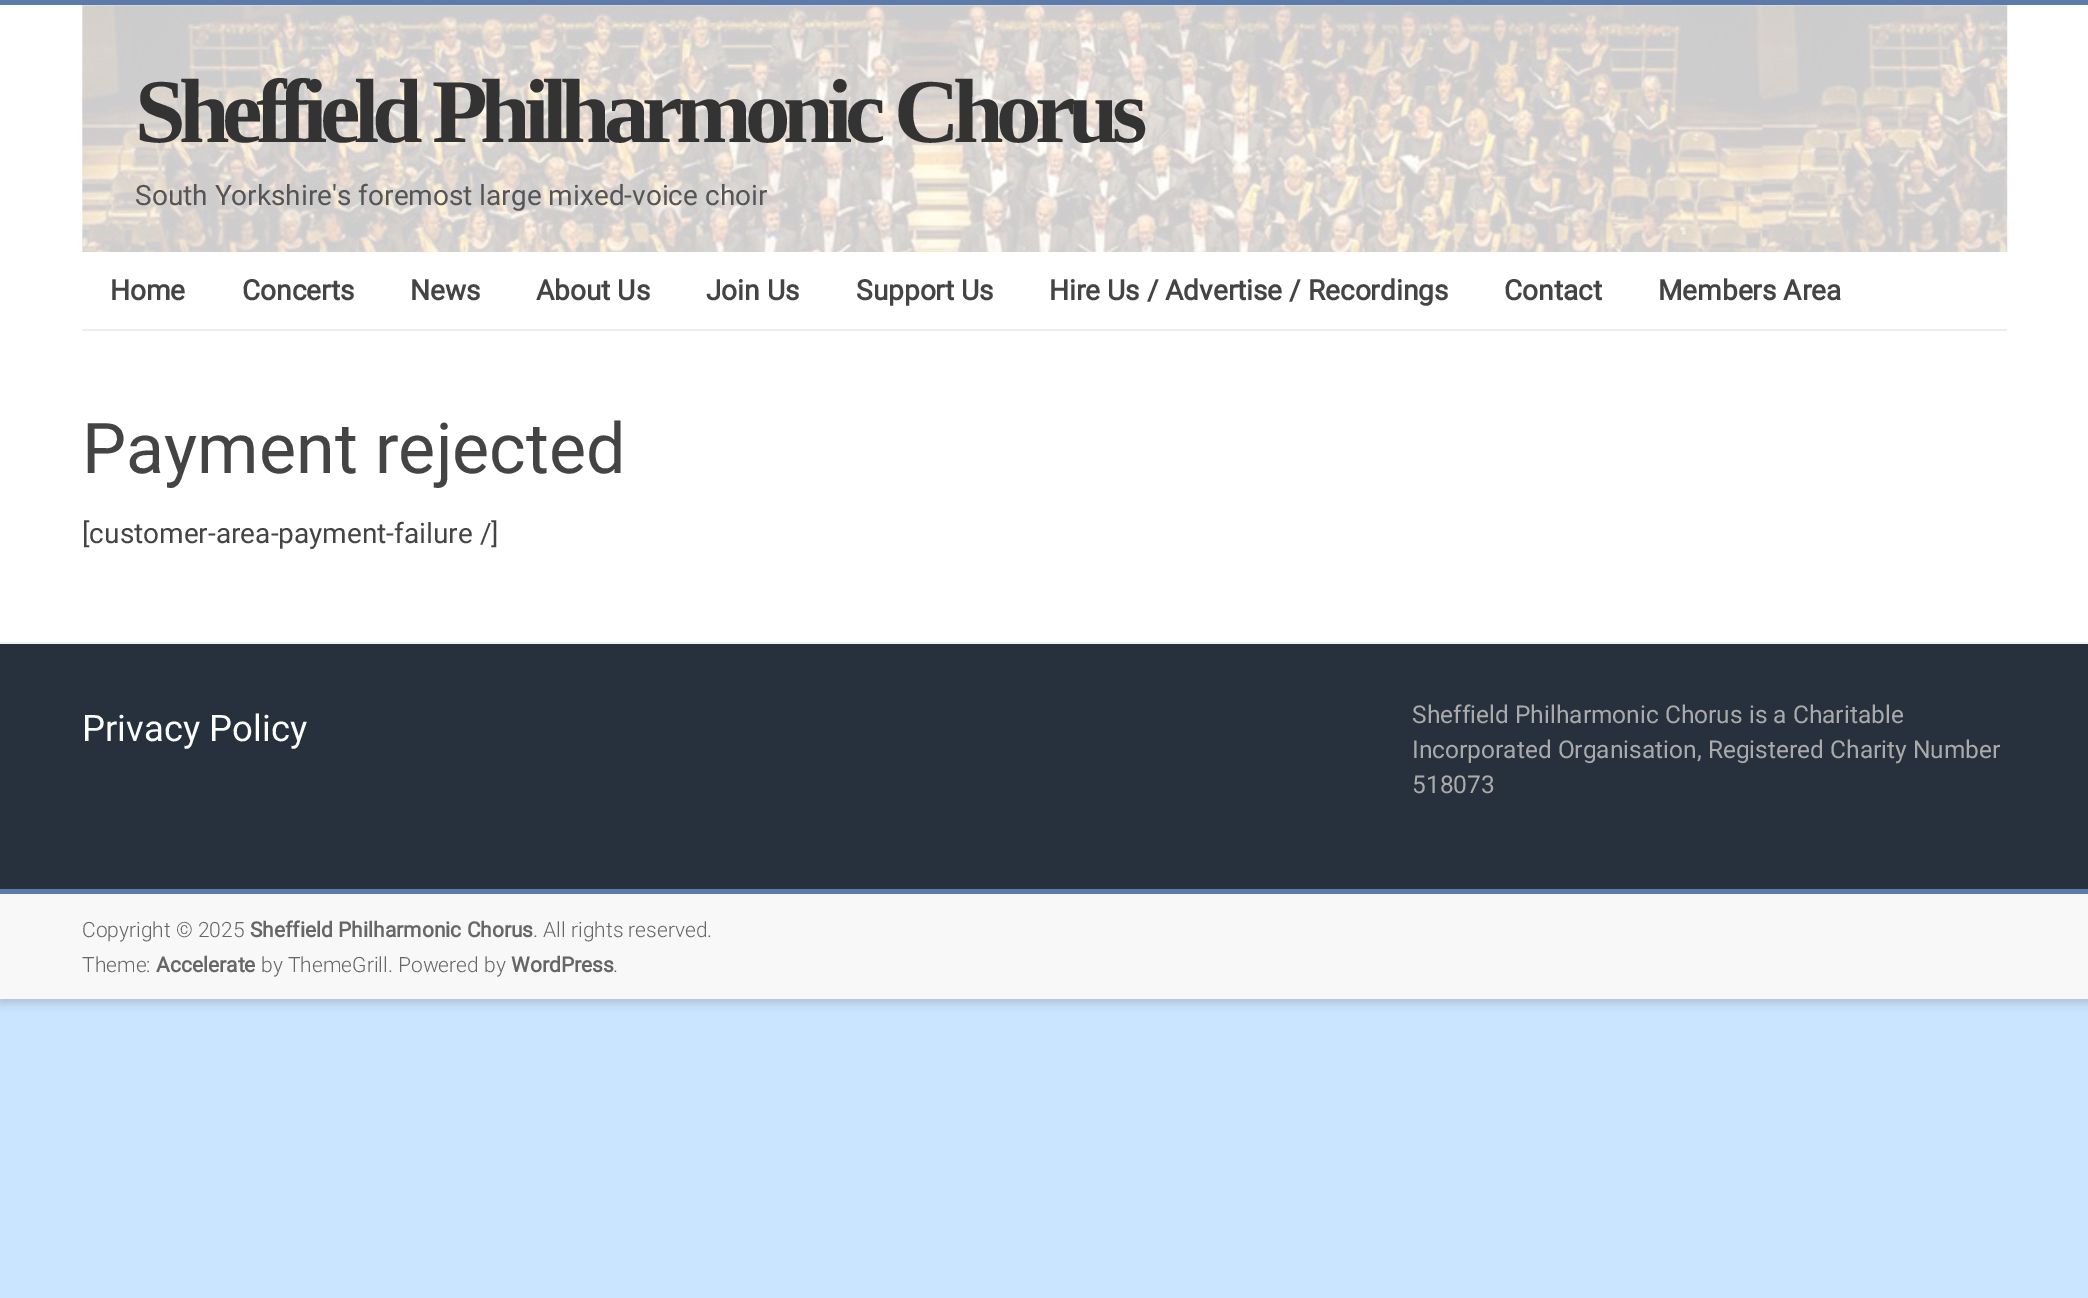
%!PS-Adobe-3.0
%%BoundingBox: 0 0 2088 1298
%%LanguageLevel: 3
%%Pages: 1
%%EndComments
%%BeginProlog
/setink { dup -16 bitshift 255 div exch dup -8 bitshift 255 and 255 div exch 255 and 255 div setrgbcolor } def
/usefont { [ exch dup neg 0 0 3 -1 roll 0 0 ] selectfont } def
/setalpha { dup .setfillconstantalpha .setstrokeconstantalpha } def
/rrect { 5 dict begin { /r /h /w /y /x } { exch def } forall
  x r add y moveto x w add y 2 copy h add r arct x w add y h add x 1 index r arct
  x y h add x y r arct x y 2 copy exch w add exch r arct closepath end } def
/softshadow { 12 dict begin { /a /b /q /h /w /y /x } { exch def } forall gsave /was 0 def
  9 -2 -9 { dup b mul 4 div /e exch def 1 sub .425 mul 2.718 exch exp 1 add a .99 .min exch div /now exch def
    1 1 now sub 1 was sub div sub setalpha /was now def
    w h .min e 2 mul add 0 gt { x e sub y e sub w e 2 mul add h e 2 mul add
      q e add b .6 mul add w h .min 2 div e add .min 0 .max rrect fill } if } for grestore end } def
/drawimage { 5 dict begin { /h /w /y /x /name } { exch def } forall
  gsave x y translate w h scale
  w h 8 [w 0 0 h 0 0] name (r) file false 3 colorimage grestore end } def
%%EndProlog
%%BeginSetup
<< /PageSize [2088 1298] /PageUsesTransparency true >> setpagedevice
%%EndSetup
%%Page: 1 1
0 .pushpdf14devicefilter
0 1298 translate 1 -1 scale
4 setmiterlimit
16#CAE5FF setink
0 0 2088 1298 rectfill
16#646464 setink
0 4 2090 999 0 5 0.3 softshadow
16#FFFFFF setink
0 5 2088 637 rectfill
16#5C7BAA setink
0 0 2088 5 rectfill
(img1.raw) 82 5 1926 247 drawimage
/LiberationSerif-Bold 91 usefont
16#333333 setink
135 142 moveto -7 0 (Sheffield Philharmonic Chorus) ashow
/Roboto-Regular 28 usefont
16#555555 setink
135 205 moveto (South Yorkshire's foremost large mixed-voice choir) show
16#EEEEEE setink
82 329 1925 2 rectfill
/Roboto-Bold 28 usefont
16#444444 setink
[
    [(Home) 110 300]
    [(Concerts) 242 300]
    [(News) 410 300]
    [(About Us) 536 300]
    [(Join Us) 706 300]
    [(Support Us) 856 300]
    [(Hire Us / Advertise / Recordings) 1049 300]
    [(Contact) 1504 300]
    [(Members Area) 1658 300]
] { aload pop moveto show } forall
/Roboto-Regular 70 usefont
82 473 moveto (Payment rejected) show
/Roboto-Regular 28 usefont
82 543 moveto ([customer-area-payment-failure /]) show
16#27313D setink
0 644 2088 245 rectfill
16#F2F2F2 setink
0 642 2088 2 rectfill
/Roboto-Regular 36.5 usefont
16#FFFFFF setink
82 741 moveto (Privacy Policy) show
/Roboto-Regular 24.5 usefont
16#AAAAAA setink
[
    [(Sheffield Philharmonic Chorus is a Charitable) 1412 723]
    [(Incorporated Organisation, Registered Charity Number) 1412 758]
    [(518073) 1412 793]
] { aload pop moveto show } forall
16#F8F8F8 setink
0 894 2088 105 rectfill
16#5C7BAA setink
0 889 2088 5 rectfill
/Roboto-Light 21 usefont
16#666666 setink
82 937 moveto (Copyright © 2025) show
/Roboto-Bold 21 usefont
250 937 moveto (Sheffield Philharmonic Chorus) show
/Roboto-Light 21 usefont
533 937 moveto (. All rights reserved.) show
82 972 moveto (Theme:) show
/Roboto-Bold 21 usefont
156 972 moveto (Accelerate) show
/Roboto-Light 21 usefont
261 972 moveto (by ThemeGrill. Powered by) show
/Roboto-Bold 21 usefont
511 972 moveto (WordPress) show
/Roboto-Light 21 usefont
613 972 moveto (.) show
.poppdf14devicefilter showpage
%%EOF
